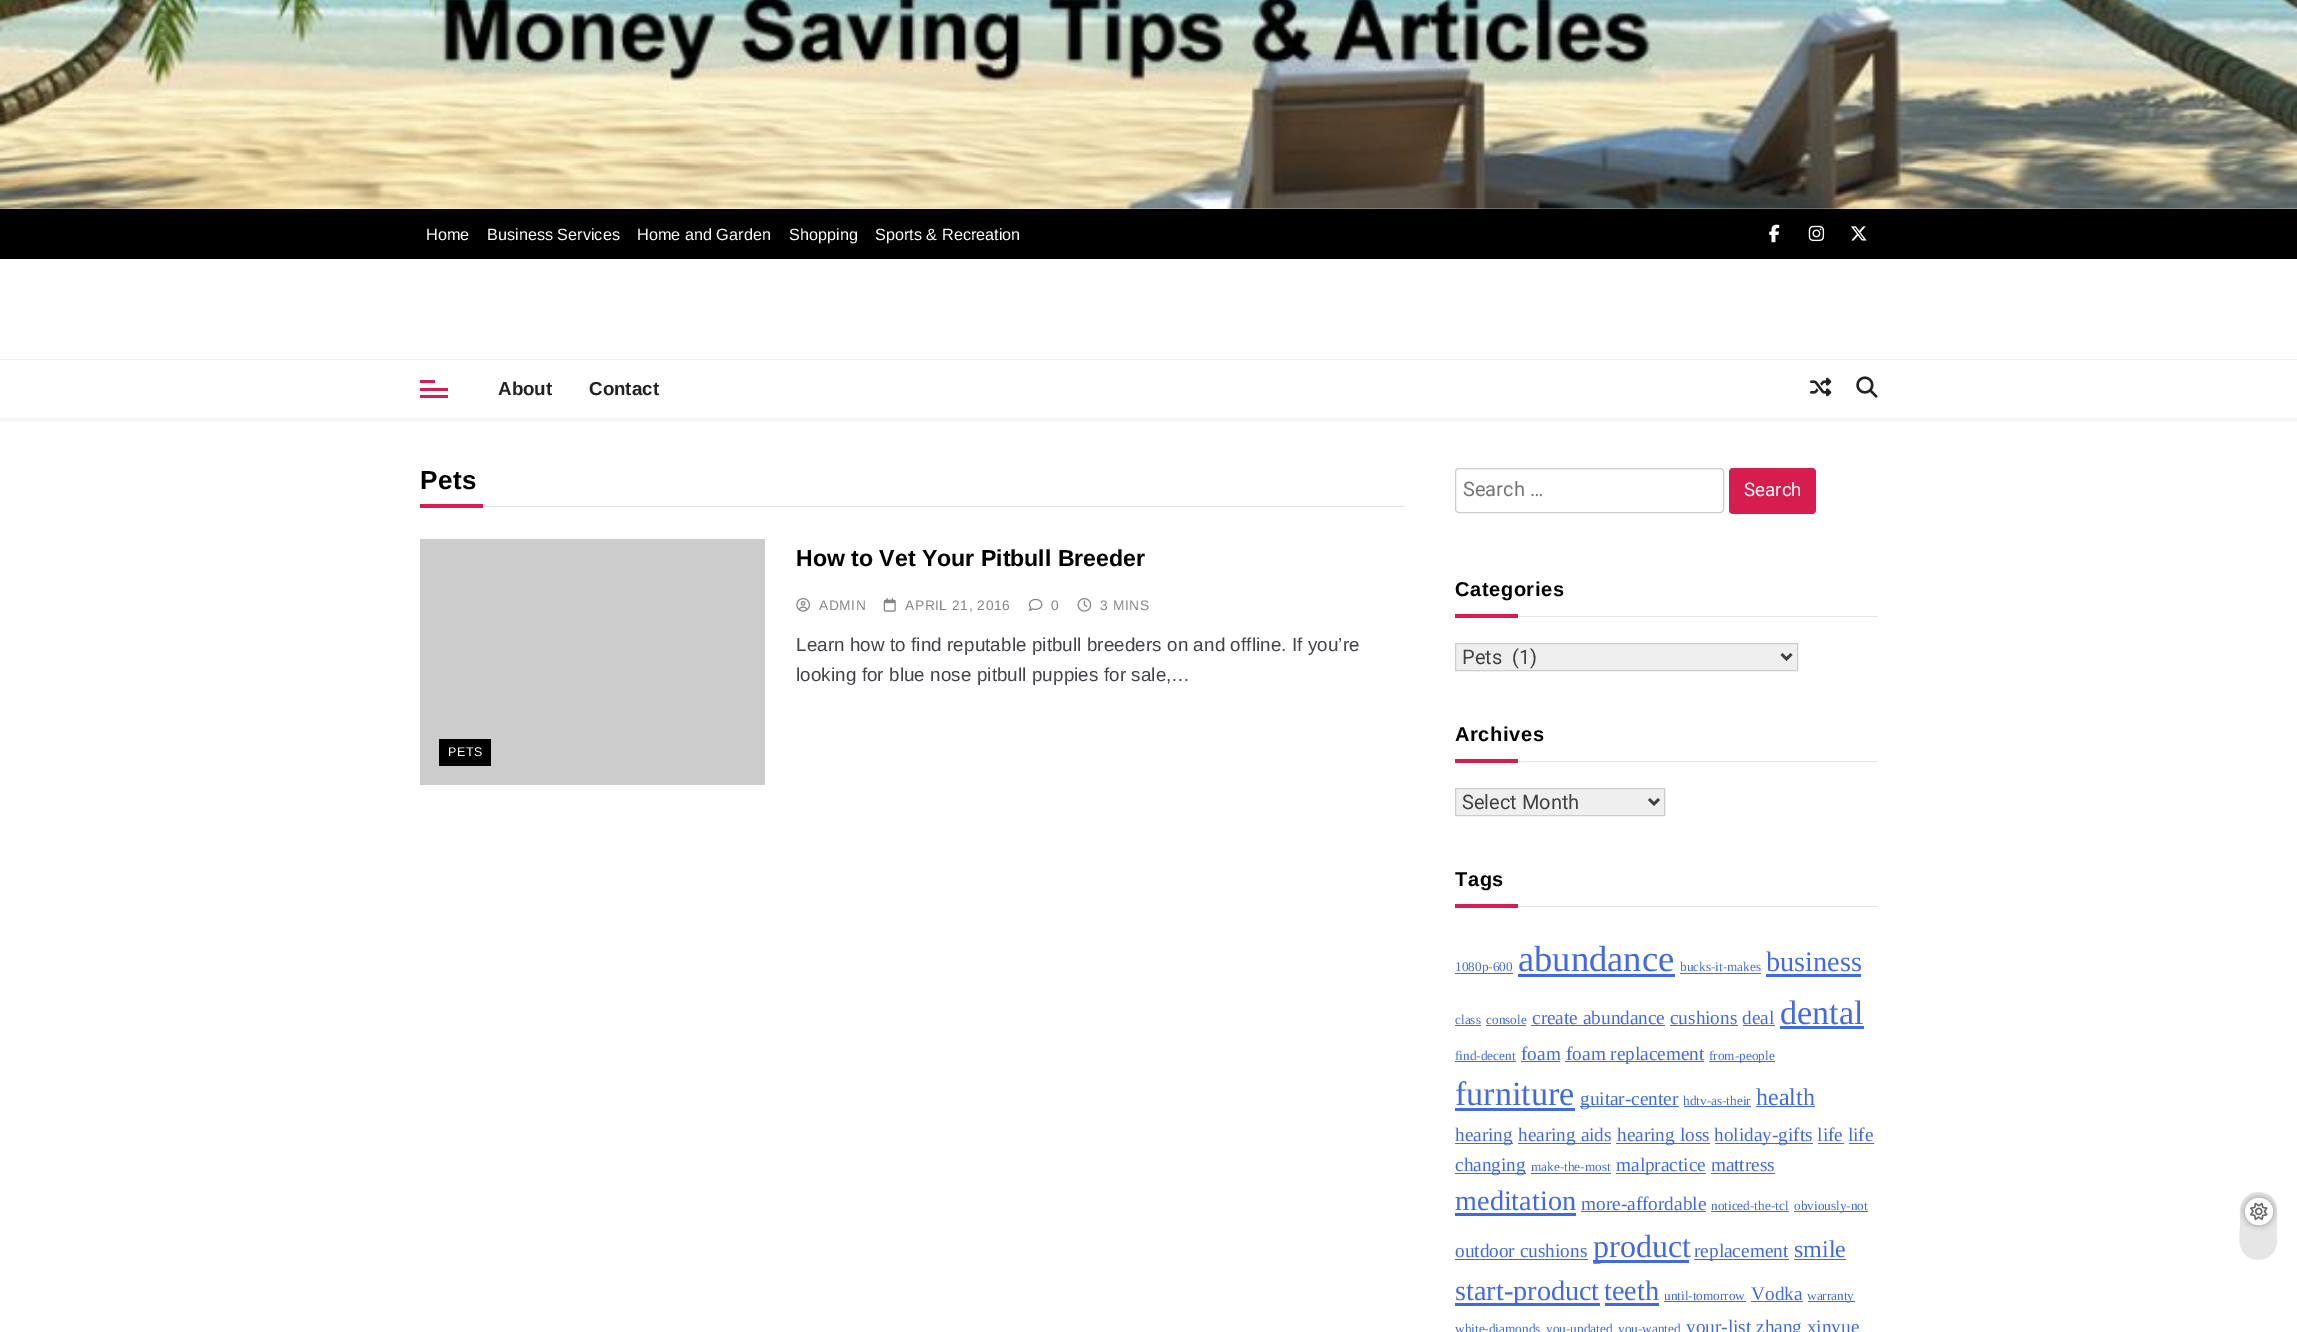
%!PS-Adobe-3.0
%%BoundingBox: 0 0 2297 1332
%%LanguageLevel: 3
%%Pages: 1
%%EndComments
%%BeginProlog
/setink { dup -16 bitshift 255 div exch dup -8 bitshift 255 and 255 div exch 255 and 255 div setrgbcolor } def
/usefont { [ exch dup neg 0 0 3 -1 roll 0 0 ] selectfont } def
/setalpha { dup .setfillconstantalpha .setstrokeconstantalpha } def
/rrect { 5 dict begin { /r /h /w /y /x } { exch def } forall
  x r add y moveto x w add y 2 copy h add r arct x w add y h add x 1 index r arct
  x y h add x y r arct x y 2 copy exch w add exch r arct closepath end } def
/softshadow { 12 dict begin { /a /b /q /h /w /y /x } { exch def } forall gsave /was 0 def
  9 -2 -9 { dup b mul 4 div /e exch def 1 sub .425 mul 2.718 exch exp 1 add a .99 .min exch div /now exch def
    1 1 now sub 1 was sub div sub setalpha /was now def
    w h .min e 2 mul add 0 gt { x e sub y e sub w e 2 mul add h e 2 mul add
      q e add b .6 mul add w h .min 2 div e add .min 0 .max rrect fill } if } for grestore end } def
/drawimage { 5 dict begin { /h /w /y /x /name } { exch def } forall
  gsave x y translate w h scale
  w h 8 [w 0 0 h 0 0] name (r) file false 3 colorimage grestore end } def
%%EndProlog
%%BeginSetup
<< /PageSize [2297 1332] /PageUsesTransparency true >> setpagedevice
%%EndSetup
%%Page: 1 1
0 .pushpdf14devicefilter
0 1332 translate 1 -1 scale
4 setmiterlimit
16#FFFFFF setink
0 0 2297 1332 rectfill
(img1.raw) 0 0 2297 209 drawimage
16#000000 setink
0 209 2297 50 rectfill
/LiberationSans-Regular 16.25 usefont
16#FFFFFF setink
[
    [(Home) 426 240]
    [(Business Services) 487 240]
    [(Home and Garden) 637 240]
    [(Shopping) 789 240]
    [(Sports & Recreation) 875 240]
] { aload pop moveto show } forall
(img2.raw) 1769 224 11 19 drawimage
(img3.raw) 1808 225 17 17 drawimage
(img4.raw) 1851 226 16 15 drawimage
gsave
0 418 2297 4 rectclip
16#000000 setink
0 263 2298 158 0 2.5 0.05 softshadow
grestore
[
    [0 417 2297 1 16#FFFFFF]
    [0 359 2297 1 16#EFEFEF]
    [420 380 15 3 16#D71D4F]
    [420 388 28 3 16#D71D4F]
    [420 395 28 3 16#D71D4F]
] { aload pop setink rectfill } forall
/LiberationSans-Bold 18.75 usefont
16#222222 setink
498 395 moveto (About) show
589 395 moveto (Contact) show
(img5.raw) 1810 377 22 20 drawimage
(img6.raw) 1856 376 22 22 drawimage
16#E5E5E5 setink
483 506 922 1 rectfill
/LiberationSans-Bold 26 usefont
16#000000 setink
420 489 moveto 0.6 0 (Pets) ashow
16#D71D4F setink
420 504 63 4 rectfill
/LiberationSans-Bold 23.1 usefont
16#000000 setink
796 566 moveto (How to Vet Your Pitbull Breeder) show
(img7.raw) 796 598 14 14 drawimage
/LiberationSans-Regular 13.75 usefont
16#858585 setink
819 610 moveto 0.6 0 (ADMIN) ashow
(img8.raw) 883 598 13 14 drawimage
905 610 moveto 0.6 0 (APRIL 21, 2016) ashow
(img9.raw) 1028 598 15 13 drawimage
1051 610 moveto 0.6 0 (0) ashow
(img10.raw) 1077 598 15 14 drawimage
1100 610 moveto 0.6 0 (3 MINS) ashow
/LiberationSans-Regular 18.75 usefont
16#424449 setink
796 651 moveto 0.12 0 (Learn how to find reputable pitbull breeders on and offline. If you’re) ashow
796 681 moveto 0.12 0 (looking for blue nose pitbull puppies for sale,…) ashow
16#CCCCCC setink
420 539 345 246 rectfill
16#000000 setink
439 739 52 27 rectfill
/LiberationSans-Regular 12.5 usefont
16#FFFFFF setink
448 756 moveto 0.6 0 (PETS) ashow
16#CCCCCC setink
1455.5 468.5 268 44 3.5 rrect stroke
/Roboto-Regular 20 usefont
16#757575 setink
1463 496 moveto (Search …) show
16#D71D4F setink
1729 468 87 46 4 rrect fill
/Roboto-Regular 18.75 usefont
16#FFFFFF setink
1744 496 moveto (Search) show
16#E5E5E5 setink
1518 616 360 1 rectfill
/LiberationSans-Bold 20 usefont
16#000000 setink
1455 596 moveto 0.6 0 (Categories) ashow
16#D71D4F setink
1455 614 63 4 rectfill
16#EFEFEF setink
1455.5 643.5 moveto 1797.5 643.5 lineto 1797.5 670.5 lineto 1455.5 670.5 lineto closepath gsave fill grestore
16#CCCCCC setink
stroke
16#404040 setink
2.5 setlinewidth
1781.5 654 moveto 1786.5 659 lineto 1791.5 654 lineto stroke
/Roboto-Regular 20 usefont
1462 664 moveto (Pets  \(1\)) show
16#E5E5E5 setink
1518 761 360 1 rectfill
/LiberationSans-Bold 20 usefont
16#000000 setink
1455 741 moveto 0.6 0 (Archives) ashow
16#D71D4F setink
1455 759 63 4 rectfill
16#EFEFEF setink
1455.5 788.5 moveto 1664.5 788.5 lineto 1664.5 815.5 lineto 1455.5 815.5 lineto closepath gsave fill grestore
16#CCCCCC setink
1 setlinewidth
stroke
16#404040 setink
2.5 setlinewidth
1649 799 moveto 1654 804 lineto 1659 799 lineto stroke
/Roboto-Regular 20 usefont
1462 809 moveto (Select Month) show
16#E5E5E5 setink
1518 906 360 1 rectfill
/LiberationSans-Bold 20 usefont
16#000000 setink
1455 886 moveto 0.6 0 (Tags) ashow
16#D71D4F setink
1455 904 63 4 rectfill
16#4169E1 setink
1455 973 58 1 rectfill
/LiberationSerif-Regular 13.25 usefont
1455 971 moveto (1080p-600) show
/LiberationSerif-Regular 36.5 usefont
1518 971 moveto (abundance) show
1518 974 157 3 rectfill
/LiberationSerif-Regular 13.25 usefont
1680 971 moveto (bucks-it-makes) show
1680 973 81 1 rectfill
/LiberationSerif-Regular 28.25 usefont
1766 971 moveto (business) show
1766 974 95 3 rectfill
/LiberationSerif-Regular 13.25 usefont
1455 1024 moveto (class) show
1455 1025 26 1 rectfill
1486 1024 moveto (console) show
1486 1025 40 1 rectfill
/LiberationSerif-Regular 19.25 usefont
1532 1024 moveto (create abundance cushions deal) show
1531 1025 134 1 rectfill
/LiberationSerif-Regular 34 usefont
1780 1024 moveto (dental) show
[
    [1780 1026 84 3 16#4169E1]
    [1670 1025 68 1 16#4169E1]
    [1743 1025 32 1 16#4169E1]
] { aload pop setink rectfill } forall
/LiberationSerif-Regular 13.25 usefont
1455 1060 moveto (find-decent) show
1455 1061 61 1 rectfill
/LiberationSerif-Regular 19.25 usefont
1521 1060 moveto (foam) show
1521 1061 39 1 rectfill
1565 1061 139 1 rectfill
1566 1060 moveto (foam replacement) show
1709 1061 66 1 rectfill
/LiberationSerif-Regular 13.25 usefont
1709 1060 moveto (from-people) show
/LiberationSerif-Regular 34 usefont
1455 1105 moveto (furniture) show
1455 1108 120 3 rectfill
1580 1106 99 1 rectfill
/LiberationSerif-Regular 19.25 usefont
1580 1105 moveto (guitar-center) show
/LiberationSerif-Regular 13.25 usefont
1683 1105 moveto (hdtv-as-their) show
1684 1106 67 1 rectfill
/LiberationSerif-Regular 24 usefont
1756 1105 moveto (health) show
1756 1106 59 1 rectfill
1455 1143 58 1 rectfill
/LiberationSerif-Regular 19.25 usefont
1455 1141 moveto (hearing) show
1518 1143 93 1 rectfill
1518 1141 moveto (hearing aids) show
1616 1143 94 1 rectfill
1617 1141 moveto (hearing loss) show
1715 1143 98 1 rectfill
1714 1141 moveto (holiday-gifts life life) show
1818 1143 26 1 rectfill
1455 1173 71 1 rectfill
1455 1171 moveto (changing) show
1849 1143 25 1 rectfill
/LiberationSerif-Regular 13.25 usefont
1531 1171 moveto (make-the-most) show
1531 1173 80 1 rectfill
1616 1173 90 1 rectfill
/LiberationSerif-Regular 19.25 usefont
1616 1171 moveto (malpractice mattress) show
1711 1173 64 1 rectfill
/LiberationSerif-Regular 28.25 usefont
1455 1210 moveto (meditation) show
1455 1213 121 3 rectfill
/LiberationSerif-Regular 19.25 usefont
1581 1210 moveto (more-affordable) show
1581 1211 125 1 rectfill
/LiberationSerif-Regular 13.25 usefont
1711 1210 moveto (noticed-the-tcl) show
1711 1211 78 1 rectfill
1794 1211 74 1 rectfill
1794 1210 moveto (obviously-not) show
/LiberationSerif-Regular 19.25 usefont
1455 1257 moveto (outdoor cushions) show
1455 1259 133 1 rectfill
1593 1260 96 3 rectfill
/LiberationSerif-Regular 32 usefont
1593 1257 moveto (product) show
1694 1259 95 1 rectfill
/LiberationSerif-Regular 19.25 usefont
1694 1257 moveto (replacement) show
/LiberationSerif-Regular 24 usefont
1794 1257 moveto (smile) show
1794 1259 52 1 rectfill
1455 1303 145 3 rectfill
/LiberationSerif-Regular 28.25 usefont
1455 1300 moveto (start-product) show
1604 1300 moveto (teeth) show
1605 1303 54 3 rectfill
/LiberationSerif-Regular 13.25 usefont
1664 1300 moveto (until-tomorrow) show
1664 1301 82 1 rectfill
/LiberationSerif-Regular 19.25 usefont
1751 1300 moveto (Vodka) show
1751 1301 52 1 rectfill
1808 1301 47 1 rectfill
/LiberationSerif-Regular 13.25 usefont
[
    [(warranty) 1807 1300]
    [(white-diamonds) 1455 1333]
    [(you-updated) 1546 1333]
    [(you-wanted) 1618 1333]
] { aload pop moveto show } forall
/LiberationSerif-Regular 19.25 usefont
1686 1333 moveto (your-list zhang xinyue) show
16#E6E6E6 setink
2277 1211 moveto 2277 1241 lineto 2277 1261 2249 1268 2241 1248 curveto 2238 1242 2240 1233 2240 1226 curveto 2240 1211 lineto 2241 1186 2277 1186 2277 1211 curveto closepath fill
16#000000 setink
2245 1198 28 27 13.5 3 0.35 softshadow
16#FFFFFF setink
2245 1198 28 27 13.5 rrect fill
(img11.raw) 2250 1202 18 19 drawimage
.poppdf14devicefilter showpage
%%EOF
